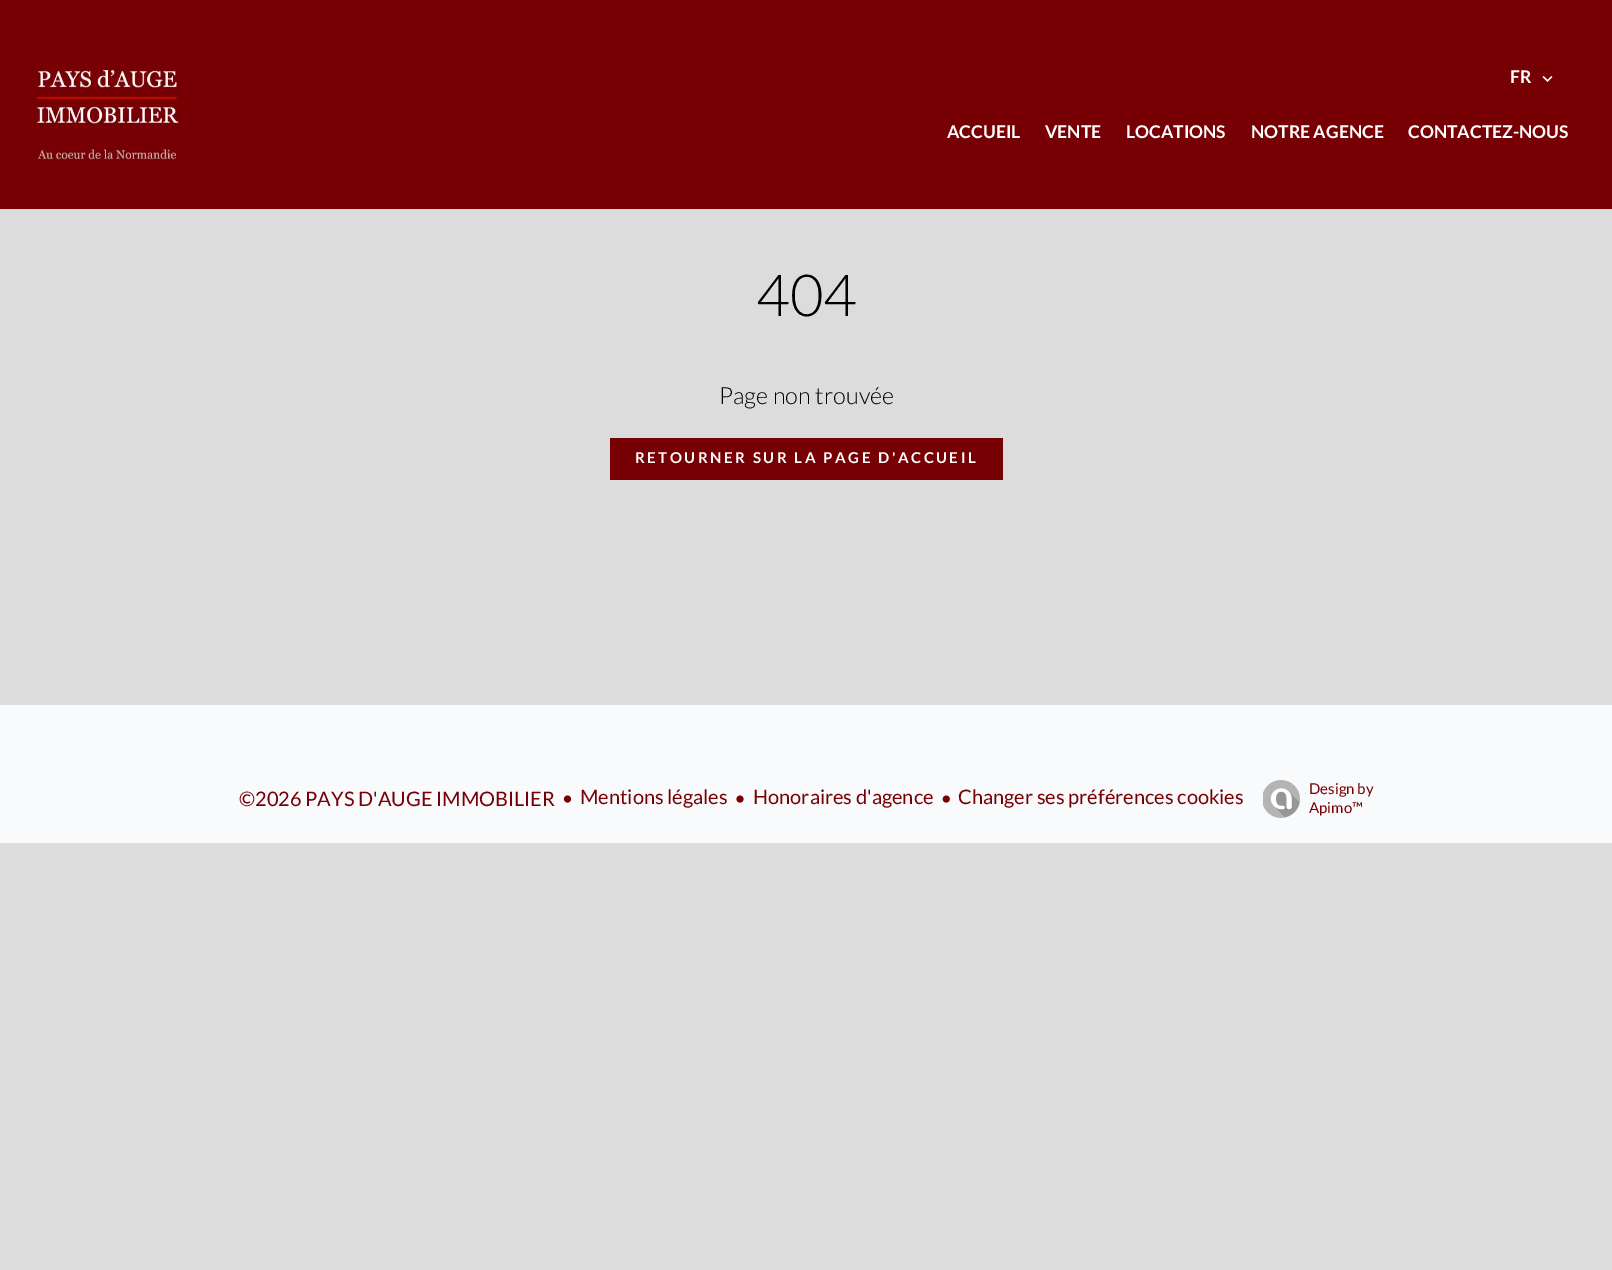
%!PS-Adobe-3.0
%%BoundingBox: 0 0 1612 1270
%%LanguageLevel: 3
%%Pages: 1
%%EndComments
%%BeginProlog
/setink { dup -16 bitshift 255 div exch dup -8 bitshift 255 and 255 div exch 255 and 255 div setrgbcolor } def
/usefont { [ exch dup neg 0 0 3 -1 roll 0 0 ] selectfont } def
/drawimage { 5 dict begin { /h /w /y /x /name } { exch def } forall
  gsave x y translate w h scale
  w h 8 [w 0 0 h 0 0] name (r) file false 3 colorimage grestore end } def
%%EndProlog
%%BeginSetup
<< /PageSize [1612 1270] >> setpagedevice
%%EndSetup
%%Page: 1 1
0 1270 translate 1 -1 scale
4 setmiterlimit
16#DCDCDC setink
0 0 1612 1270 rectfill
16#770004 setink
0 0 1612 209 rectfill
(img1.raw) 36 68 144 94 drawimage
/Lato-Bold 17.5 usefont
16#FFFFFF setink
1510 83 moveto (FR) show
(img2.raw) 1542 76 11 6 drawimage
[
    [(ACCUEIL) 947 138]
    [(VENTE) 1045 138]
    [(LOCATIONS) 1126 138]
    [(NOTRE AGENCE) 1251 138]
    [(CONTACTEZ-NOUS) 1408 138]
] { aload pop moveto show } forall
/Lato-Light 58 usefont
16#000000 setink
756 316 moveto (404) show
/Lato-Light 23.5 usefont
719 404 moveto (Page non trouvée) show
16#770004 setink
610 438 393 42 rectfill
/Lato-Bold 15 usefont
16#FFFFFF setink
635 463 moveto 2.5 0 (RETOURNER SUR LA PAGE D'ACCUEIL) ashow
16#F9FAFB setink
0 705 1612 138 rectfill
/Lato-Regular 20 usefont
16#770004 setink
239 806 moveto (©2026 PAYS D'AUGE IMMOBILIER) show
(img3.raw) 563 795 9 8 drawimage
580 804 moveto (Mentions légales) show
(img4.raw) 736 795 8 8 drawimage
753 804 moveto (Honoraires d'agence) show
(img5.raw) 942 795 8 8 drawimage
958 804 moveto (Changer ses préférences cookies) show
(img6.raw) 1263 780 37 38 drawimage
/Lato-Regular 15 usefont
1309 794 moveto (Design by) show
1309 813 moveto (Apimo™) show
showpage
%%EOF
